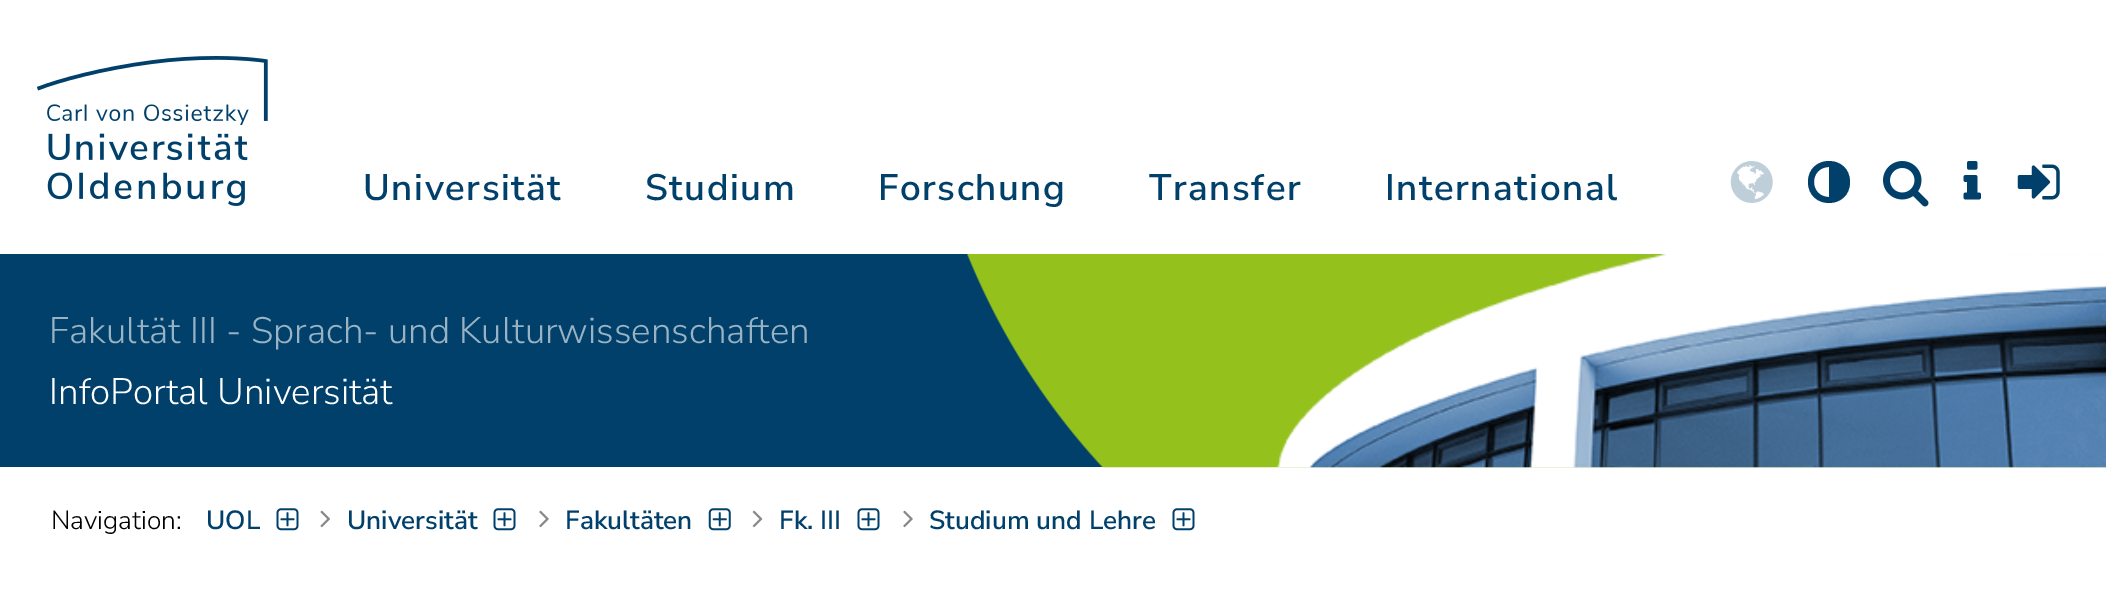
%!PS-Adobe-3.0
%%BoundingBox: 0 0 2106 589
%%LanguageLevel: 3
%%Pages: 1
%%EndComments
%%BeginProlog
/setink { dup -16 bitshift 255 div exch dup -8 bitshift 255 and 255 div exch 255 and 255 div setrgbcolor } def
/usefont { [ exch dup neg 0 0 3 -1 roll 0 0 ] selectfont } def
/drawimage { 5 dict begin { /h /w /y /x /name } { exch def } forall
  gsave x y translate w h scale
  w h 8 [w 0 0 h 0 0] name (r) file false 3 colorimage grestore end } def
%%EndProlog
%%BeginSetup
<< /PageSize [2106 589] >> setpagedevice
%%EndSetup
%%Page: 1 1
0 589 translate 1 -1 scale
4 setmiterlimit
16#FFFFFF setink
0 0 2106 589 rectfill
(img1.raw) 37 56 231 150 drawimage
/NunitoSans-SemiBold 36.75 usefont
16#00406B setink
363 200 moveto 1.5 0 (Universität) ashow
645 200 moveto 1.5 0 (Studium) ashow
878 200 moveto 1.5 0 (Forschung) ashow
1149 200 moveto 1.5 0 (Transfer) ashow
1385 200 moveto 1.5 0 (International) ashow
(img2.raw) 1730 161 43 42 drawimage
1829 197 moveto 1809 197 1809 167 1829 167 curveto closepath 1850 182 moveto 1850 154 1808 154 1808 182 curveto 1808 210 1850 210 1850 182 curveto closepath fill
(img3.raw) 1883 161 46 46 drawimage
(img4.raw) 1963 161 18 39 drawimage
(img5.raw) 2017 164 43 36 drawimage
0 254 1103 213 rectfill
(img6.raw) 967 254 1139 214 drawimage
/NunitoSans-Light 36.75 usefont
16#99B3C4 setink
49 343 moveto (Fakultät III - Sprach- und Kulturwissenschaften) show
16#FFFFFF setink
49 404 moveto (InfoPortal Universität) show
/NunitoSans-Light 26.25 usefont
16#000000 setink
51 529 moveto (Navigation:) show
/NunitoSans-SemiBold 26.25 usefont
16#00406B setink
206 529 moveto (UOL) show
(img7.raw) 276 508 23 23 drawimage
(img8.raw) 320 510 10 18 drawimage
347 529 moveto (Universität) show
(img7.raw) 493 508 23 23 drawimage
(img9.raw) 539 510 10 18 drawimage
565 529 moveto (Fakultäten) show
(img10.raw) 708 508 23 23 drawimage
(img11.raw) 752 510 11 18 drawimage
779 529 moveto (Fk. III) show
(img7.raw) 857 508 23 23 drawimage
(img9.raw) 903 510 10 18 drawimage
929 529 moveto (Studium und Lehre) show
(img7.raw) 1172 508 23 23 drawimage
showpage
%%EOF
